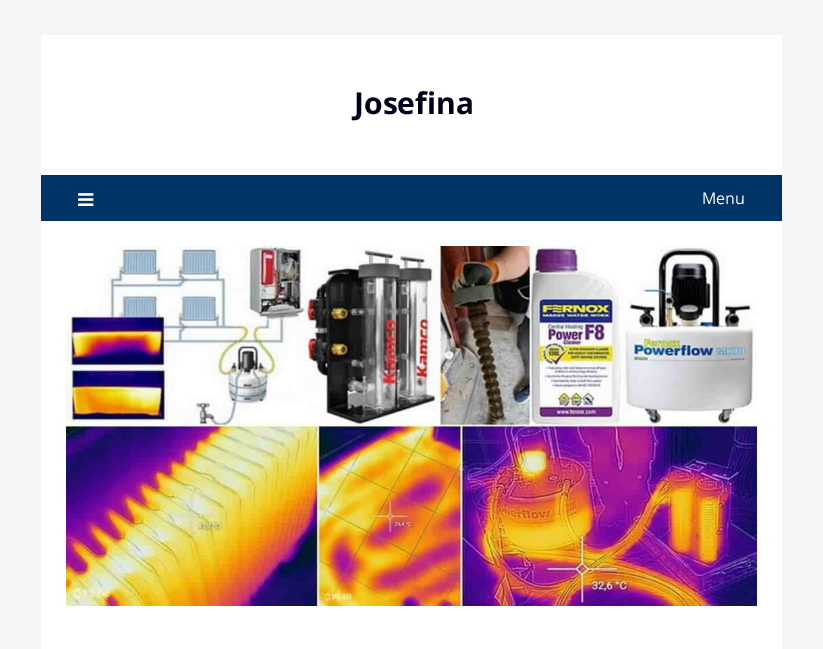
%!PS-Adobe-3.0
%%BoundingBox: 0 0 823 649
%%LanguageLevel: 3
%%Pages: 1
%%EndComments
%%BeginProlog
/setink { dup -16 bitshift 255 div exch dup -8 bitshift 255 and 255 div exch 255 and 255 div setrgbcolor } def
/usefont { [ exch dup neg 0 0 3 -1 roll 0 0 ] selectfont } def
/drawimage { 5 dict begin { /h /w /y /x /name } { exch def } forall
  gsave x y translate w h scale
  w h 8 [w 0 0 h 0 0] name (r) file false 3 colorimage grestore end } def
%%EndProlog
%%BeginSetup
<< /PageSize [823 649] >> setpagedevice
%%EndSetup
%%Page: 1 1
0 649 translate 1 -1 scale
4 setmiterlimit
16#F5F5F5 setink
0 0 823 649 rectfill
16#FFFFFF setink
41 35 741 140 rectfill
/OpenSans-Bold 30 usefont
16#00021A setink
354 114 moveto (Josefina) show
16#003366 setink
41 175 741 46 rectfill
(img1.raw) 78 193 16 13 drawimage
/OpenSans-Regular 16 usefont
16#FFFFFF setink
702 204 moveto (Menu) show
41 221 741 428 rectfill
(img2.raw) 66 246 691 360 drawimage
showpage
%%EOF
